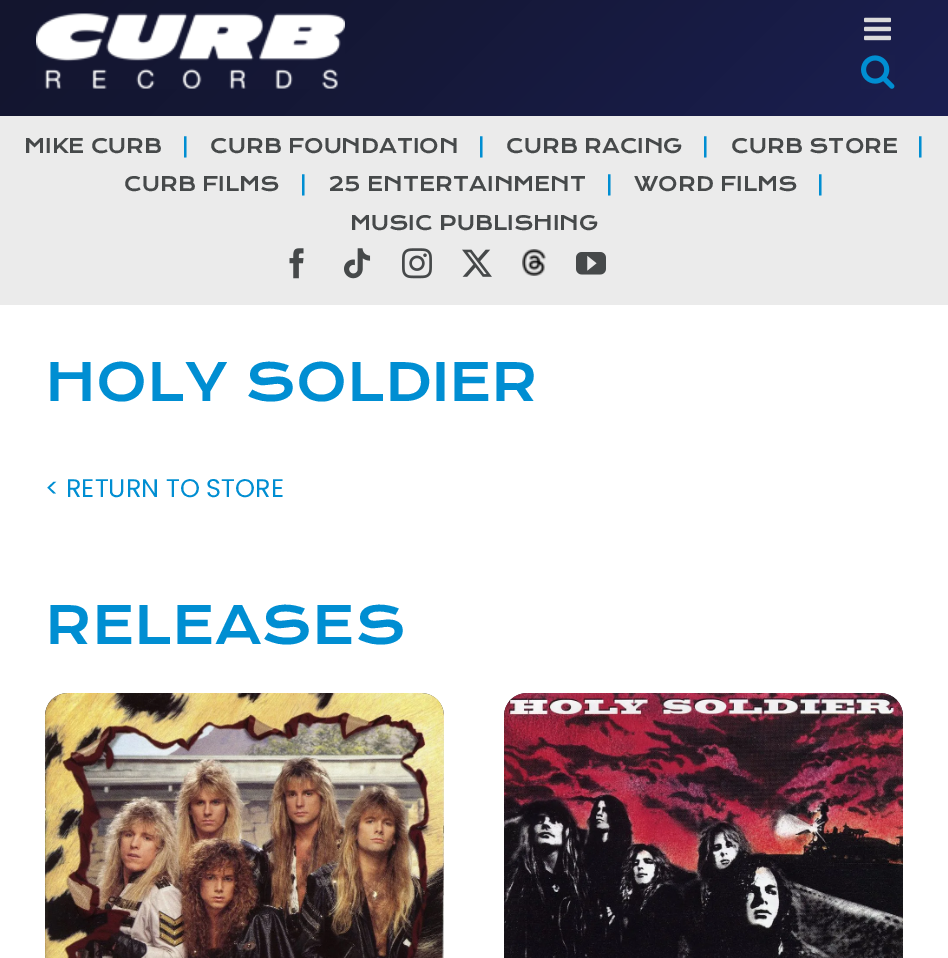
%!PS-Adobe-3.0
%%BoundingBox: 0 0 948 958
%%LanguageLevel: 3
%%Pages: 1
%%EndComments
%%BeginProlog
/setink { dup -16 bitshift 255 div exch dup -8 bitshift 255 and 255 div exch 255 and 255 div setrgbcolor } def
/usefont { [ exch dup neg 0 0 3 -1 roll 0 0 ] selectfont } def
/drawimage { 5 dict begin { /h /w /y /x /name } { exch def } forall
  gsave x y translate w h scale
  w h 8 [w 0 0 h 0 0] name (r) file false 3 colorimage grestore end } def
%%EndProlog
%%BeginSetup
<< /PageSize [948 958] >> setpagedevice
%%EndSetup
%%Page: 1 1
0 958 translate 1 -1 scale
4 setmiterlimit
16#FFFFFF setink
0 0 948 958 rectfill
gsave 0 0 moveto 948 0 lineto 948 116 lineto 0 116 lineto closepath clip newpath
<< /ShadingType 2 /ColorSpace /DeviceRGB /Coords [208 -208 740 324] /Extend [true true] /Function << /FunctionType 3 /Domain [0 1] /Functions [<< /FunctionType 2 /Domain [0 1] /C0 [0.075 0.082 0.18] /C1 [0.082 0.094 0.216] /N 1 >> << /FunctionType 2 /Domain [0 1] /C0 [0.082 0.094 0.216] /C1 [0.106 0.122 0.318] /N 1 >>] /Bounds [0.41] /Encode [0 1 0 1] >> >> shfill grestore
(img1.raw) 36 13 309 76 drawimage
(img2.raw) 864 17 27 24 drawimage
(img3.raw) 861 55 34 34 drawimage
16#EBEBEB setink
0 116 948 189 rectfill
/KronaOne-Regular 19.5 usefont
16#46494A setink
24 153 moveto (MIKE CURB) show
16#008ED2 setink
182 153 moveto (|) show
16#46494A setink
210 153 moveto (CURB FOUNDATION) show
16#008ED2 setink
478 153 moveto (|) show
16#46494A setink
506 153 moveto (CURB RACING) show
16#008ED2 setink
702 153 moveto (|) show
16#46494A setink
731 153 moveto (CURB STORE) show
16#008ED2 setink
917 153 moveto (|) show
16#46494A setink
124 191 moveto (CURB FILMS) show
16#008ED2 setink
300 191 moveto (|) show
16#46494A setink
328 191 moveto (25 ENTERTAINMENT) show
16#008ED2 setink
606 191 moveto (|) show
16#46494A setink
634 191 moveto (WORD FILMS) show
16#008ED2 setink
817 191 moveto (|) show
16#46494A setink
350 230 moveto (MUSIC PUBLISHING) show
(img4.raw) 289 248 15 31 drawimage
(img5.raw) 344 248 27 31 drawimage
(img6.raw) 402 248 30 31 drawimage
(img7.raw) 462 249 30 28 drawimage
(img8.raw) 522 249 24 27 drawimage
(img9.raw) 576 252 30 23 drawimage
/KronaOne-Regular 51 usefont
16#008ED2 setink
45 401 moveto (HOLY SOLDIER) show
/Poppins-Regular 25.5 usefont
45 497 moveto (< RETURN TO STORE) show
/KronaOne-Regular 51 usefont
45 644 moveto (RELEASES) show
(img10.raw) 45 693 399 265 drawimage
(img11.raw) 504 693 399 265 drawimage
showpage
%%EOF
